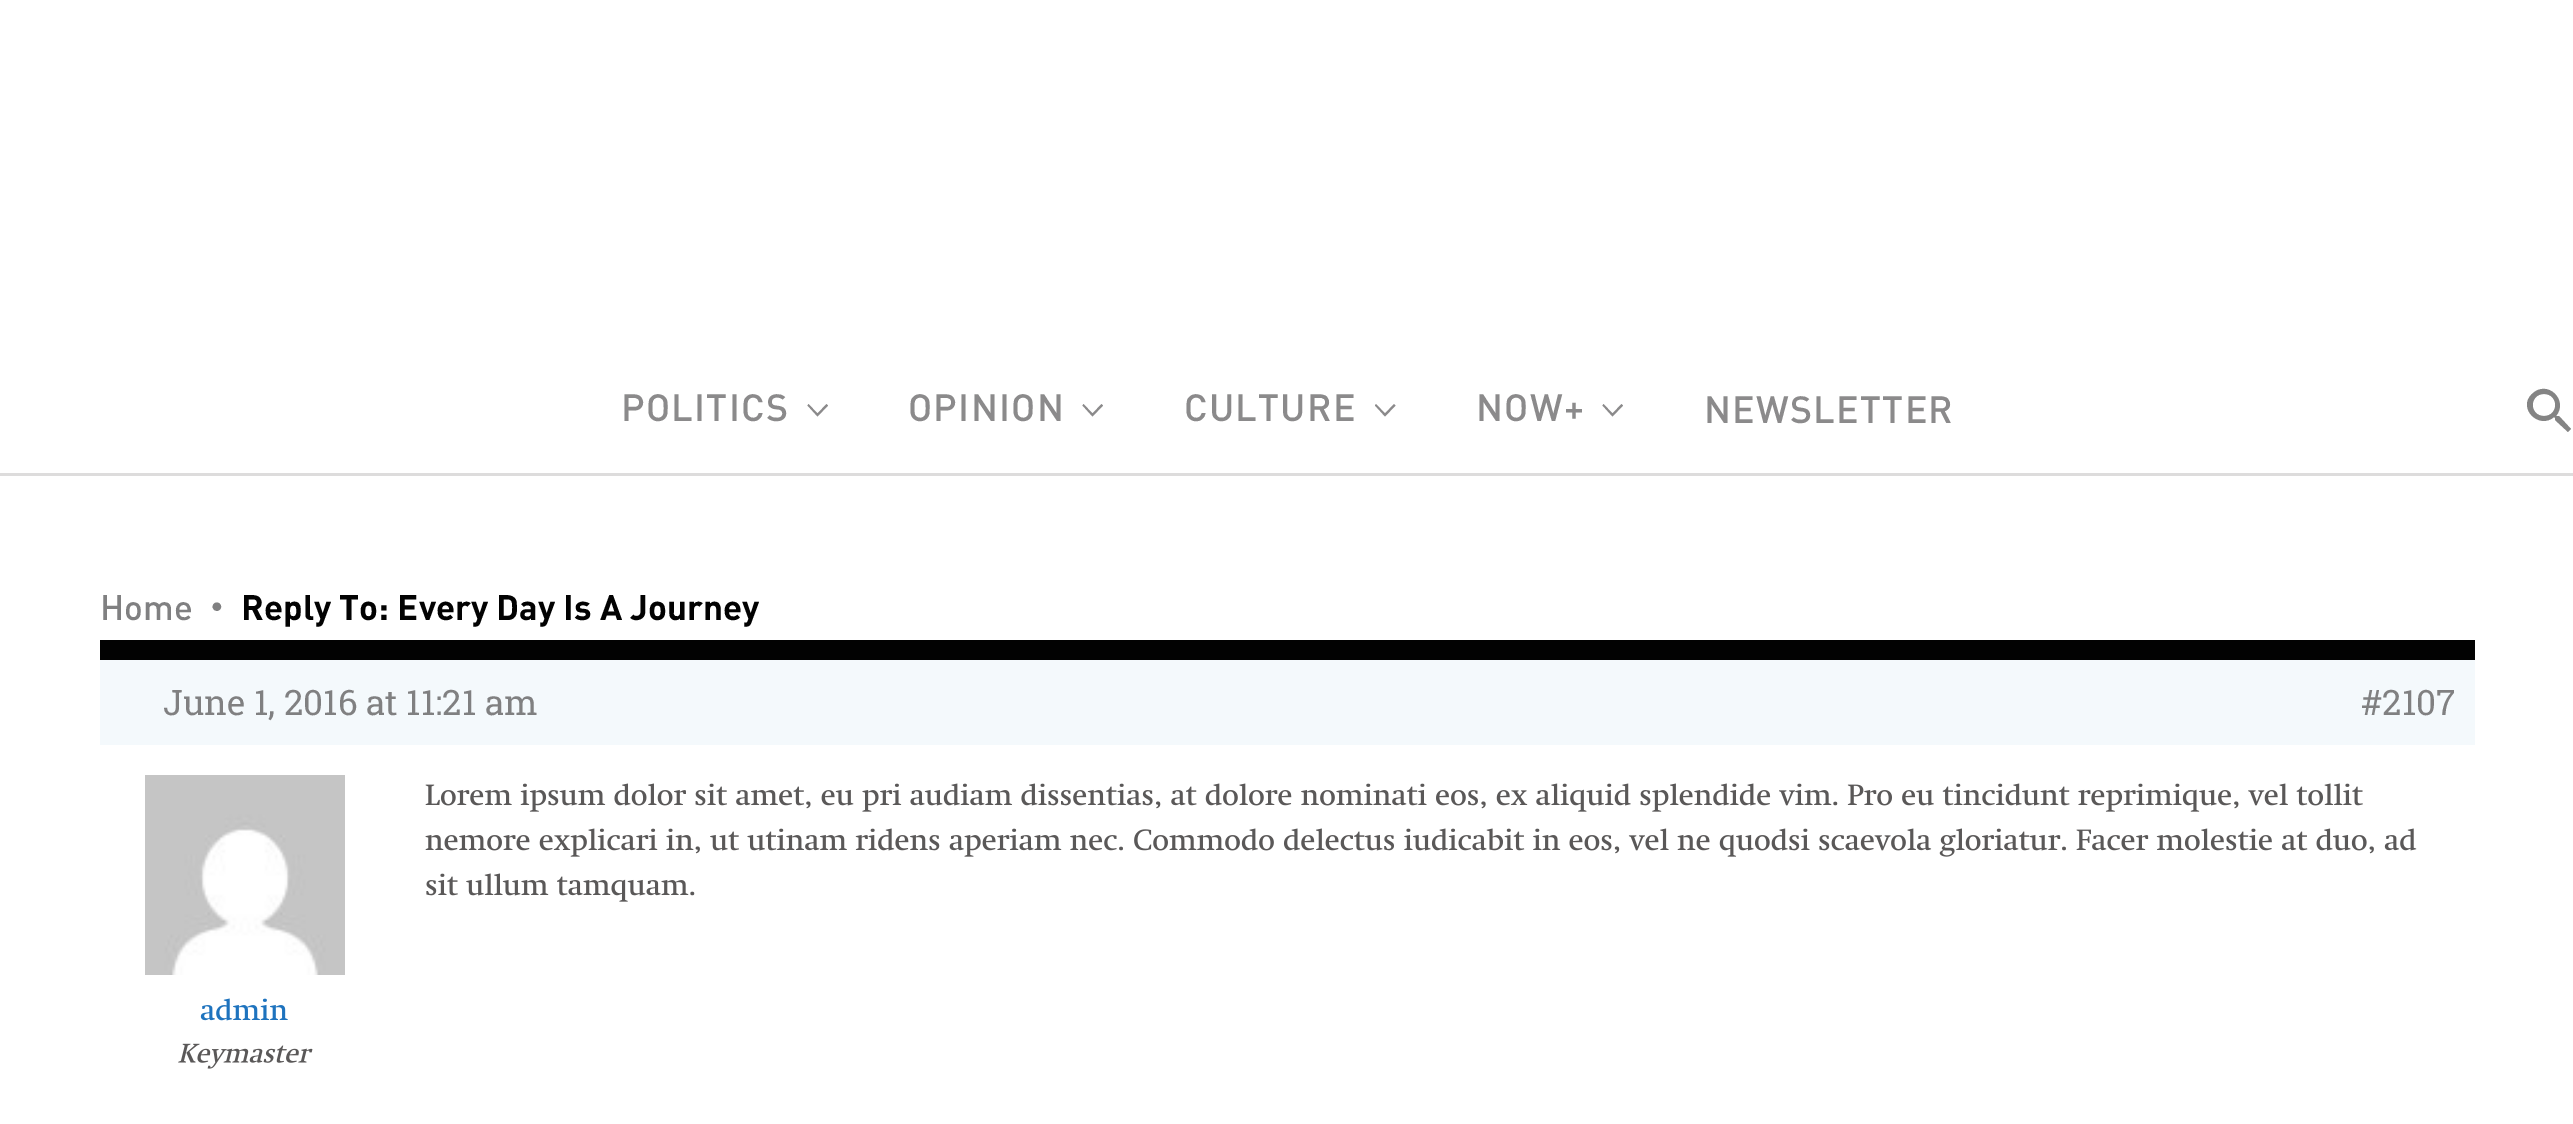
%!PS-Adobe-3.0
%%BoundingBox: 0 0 2573 1124
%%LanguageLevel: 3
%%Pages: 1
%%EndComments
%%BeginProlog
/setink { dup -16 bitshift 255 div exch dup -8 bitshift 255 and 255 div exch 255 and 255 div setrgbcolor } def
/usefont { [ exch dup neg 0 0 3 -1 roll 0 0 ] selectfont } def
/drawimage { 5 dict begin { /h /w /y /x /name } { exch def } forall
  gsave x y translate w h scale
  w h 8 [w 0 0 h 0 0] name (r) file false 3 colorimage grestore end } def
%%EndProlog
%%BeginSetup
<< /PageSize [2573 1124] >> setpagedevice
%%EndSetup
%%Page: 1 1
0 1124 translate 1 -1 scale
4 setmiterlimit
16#FFFFFF setink
0 0 2573 1124 rectfill
/DIN-Medium 37.5 usefont
16#8B8A8B setink
621 421 moveto 1.25 0 (POLITICS) ashow
826.5 404 moveto 828 405.5 lineto 817.5 416.5 lineto 807.5 405.5 lineto 808.5 404 lineto 817.5 413.5 lineto closepath fill
908 421 moveto 1.25 0 (OPINION) ashow
1101.5 404 moveto 1103 405.5 lineto 1092.5 416.5 lineto 1082.5 405.5 lineto 1083.5 404 lineto 1092.5 413.5 lineto closepath fill
1184 421 moveto 1.25 0 (CULTURE) ashow
1394 404 moveto 1395.5 405.5 lineto 1385 416.5 lineto 1375 405.5 lineto 1376 404 lineto 1385 413.5 lineto closepath fill
1476 421 moveto 1.25 0 (NOW+) ashow
1621.5 404 moveto 1623 405.5 lineto 1612.5 416.5 lineto 1602.5 405.5 lineto 1603.5 404 lineto 1612.5 413.5 lineto closepath fill
1704 423 moveto 1.25 0 (NEWSLETTER) ashow
16#848484 setink
2559 416 moveto 2557 416 lineto 2556 416 lineto 2569 400 2547 379 2532 394 curveto 2517 408 2539 430 2554 417 curveto 2555 418 lineto 2555 420 lineto 2568 432 lineto 2571 429 lineto closepath 2544 416 moveto 2529 416 2529 394 2544 394 curveto 2559 394 2559 416 2544 416 curveto closepath fill
16#DDDCDC setink
0 473 2573 3 rectfill
/DIN-Medium 35 usefont
16#808081 setink
100 620 moveto (Home) show
/Arvo-Regular 35 usefont
210 620 moveto (•) show
/DIN-Bold 35 usefont
16#020202 setink
241 620 moveto (Reply To: Every Day Is A Journey) show
100 640 2375 20 rectfill
16#F4F9FC setink
100 660 2375 85 rectfill
/RobotoSlab-Regular 35 usefont
16#808081 setink
163 715 moveto (June 1, 2016 at 11:21 am) show
2361 715 moveto (#2107) show
(img1.raw) 145 775 200 200 drawimage
(img2.raw) 200 998 88 23 drawimage
(img3.raw) 178 1043 135 26 drawimage
(img4.raw) 425 783 1938 29 drawimage
(img5.raw) 425 828 1992 29 drawimage
(img6.raw) 426 873 269 29 drawimage
showpage
%%EOF
